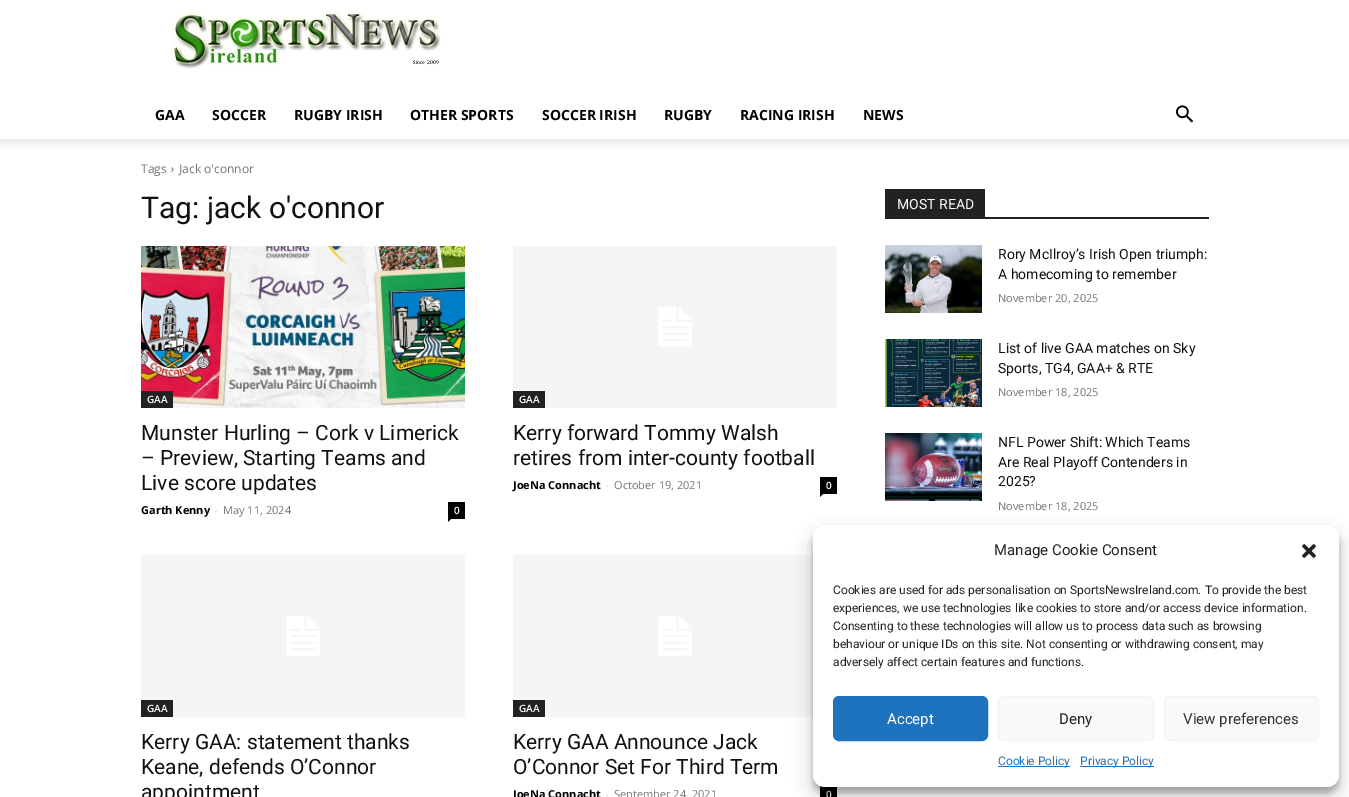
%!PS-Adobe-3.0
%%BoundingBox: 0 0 1349 797
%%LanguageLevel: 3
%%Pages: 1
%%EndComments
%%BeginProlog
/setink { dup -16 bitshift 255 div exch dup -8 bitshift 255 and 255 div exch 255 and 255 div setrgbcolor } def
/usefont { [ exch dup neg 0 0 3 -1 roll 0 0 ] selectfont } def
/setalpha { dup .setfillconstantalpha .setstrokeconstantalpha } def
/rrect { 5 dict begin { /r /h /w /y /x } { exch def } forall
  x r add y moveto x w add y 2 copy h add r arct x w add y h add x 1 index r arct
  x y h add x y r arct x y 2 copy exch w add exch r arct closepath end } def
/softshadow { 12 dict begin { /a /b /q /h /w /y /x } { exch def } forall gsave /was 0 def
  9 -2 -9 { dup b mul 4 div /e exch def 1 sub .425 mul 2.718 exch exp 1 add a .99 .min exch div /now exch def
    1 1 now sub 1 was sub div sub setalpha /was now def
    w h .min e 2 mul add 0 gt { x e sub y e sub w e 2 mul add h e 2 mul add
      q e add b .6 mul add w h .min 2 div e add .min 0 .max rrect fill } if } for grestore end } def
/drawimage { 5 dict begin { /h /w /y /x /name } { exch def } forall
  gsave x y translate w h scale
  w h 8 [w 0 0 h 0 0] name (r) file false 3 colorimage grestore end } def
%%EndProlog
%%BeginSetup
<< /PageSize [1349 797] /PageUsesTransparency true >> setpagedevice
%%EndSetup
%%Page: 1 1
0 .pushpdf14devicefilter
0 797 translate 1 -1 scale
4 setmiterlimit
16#FFFFFF setink
0 0 1349 797 rectfill
(img1.raw) 171 10 272 59 drawimage
/OpenSans-Bold 14 usefont
16#000000 setink
[
    [(GAA) 155 120]
    [(SOCCER) 212 120]
    [(RUGBY IRISH) 294 120]
    [(OTHER SPORTS) 410 120]
    [(SOCCER IRISH) 542 120]
    [(RUGBY) 664 120]
    [(RACING IRISH) 740 120]
    [(NEWS) 863 120]
] { aload pop moveto show } forall
(img2.raw) 1176 105 17 18 drawimage
(img3.raw) 0 139 1349 9 drawimage
/OpenSans-Regular 12 usefont
16#747474 setink
141 173 moveto (Tags) show
(img4.raw) 171 167 3 5 drawimage
179 173 moveto (Jack o'connor) show
/Roboto-Regular 30 usefont
16#111111 setink
141 218 moveto (Tag: jack o'connor) show
(img5.raw) 141 246 324 162 drawimage
16#222222 setink
141 391 32 17 rectfill
/OpenSans-SemiBold 10 usefont
16#FFFFFF setink
147 403 moveto (GAA) show
/Roboto-Regular 21 usefont
16#111111 setink
[
    [(Munster Hurling – Cork v Limerick) 141 440]
    [(– Preview, Starting Teams and) 141 465]
    [(Live score updates) 141 490]
] { aload pop moveto show } forall
/OpenSans-Bold 11 usefont
16#000000 setink
141 514 moveto (Garth Kenny) show
/OpenSans-Regular 11 usefont
16#CCCCCC setink
214 514 moveto (-) show
16#747474 setink
223 514 moveto (May 11, 2024) show
16#000000 setink
448 502 17 17 rectfill
/OpenSans-SemiBold 10 usefont
16#FFFFFF setink
454 514 moveto (0) show
16#000000 setink
448 519 moveto 451 519 lineto 448 522 lineto closepath fill
(img6.raw) 513 246 324 162 drawimage
16#222222 setink
513 391 32 17 rectfill
16#FFFFFF setink
519 403 moveto (GAA) show
/Roboto-Regular 21 usefont
16#111111 setink
513 440 moveto (Kerry forward Tommy Walsh) show
513 465 moveto (retires from inter-county football) show
/OpenSans-Bold 11 usefont
16#000000 setink
513 489 moveto (JoeNa Connacht) show
/OpenSans-Regular 11 usefont
16#CCCCCC setink
605 489 moveto (-) show
16#747474 setink
614 489 moveto (October 19, 2021) show
16#000000 setink
820 477 17 17 rectfill
/OpenSans-SemiBold 10 usefont
16#FFFFFF setink
826 489 moveto (0) show
16#000000 setink
820 494 moveto 823 494 lineto 820 497 lineto closepath fill
(img6.raw) 141 555 324 162 drawimage
16#222222 setink
141 700 32 17 rectfill
16#FFFFFF setink
147 712 moveto (GAA) show
/Roboto-Regular 21 usefont
16#111111 setink
[
    [(Kerry GAA: statement thanks) 141 749]
    [(Keane, defends O’Connor) 141 774]
    [(appointment) 141 799]
] { aload pop moveto show } forall
(img7.raw) 513 555 300 162 drawimage
16#222222 setink
513 700 32 17 rectfill
/OpenSans-SemiBold 10 usefont
16#FFFFFF setink
519 712 moveto (GAA) show
/Roboto-Regular 21 usefont
16#111111 setink
513 749 moveto (Kerry GAA Announce Jack) show
513 774 moveto (O’Connor Set For Third Term) show
/OpenSans-Bold 11 usefont
16#000000 setink
513 798 moveto (JoeNa Connacht) show
/OpenSans-Regular 11 usefont
16#CCCCCC setink
605 798 moveto (-) show
16#747474 setink
614 798 moveto (September 24, 2021) show
16#000000 setink
820 786 17 11 rectfill
/OpenSans-SemiBold 10 usefont
16#FFFFFF setink
826 798 moveto (0) show
16#222222 setink
885 217 324 2 rectfill
885 189 100 28 rectfill
/Roboto-Regular 14 usefont
16#FFFFFF setink
897 209 moveto (MOST READ) show
(img8.raw) 885 245 97 68 drawimage
16#111111 setink
998 259 moveto (Rory McIlroy’s Irish Open triumph:) show
998 279 moveto (A homecoming to remember) show
/OpenSans-Regular 11 usefont
16#747474 setink
998 302 moveto (November 20, 2025) show
(img9.raw) 885 339 97 68 drawimage
/Roboto-Regular 14 usefont
16#111111 setink
998 353 moveto (List of live GAA matches on Sky) show
998 373 moveto (Sports, TG4, GAA+ & RTE) show
/OpenSans-Regular 11 usefont
16#747474 setink
998 396 moveto (November 18, 2025) show
(img10.raw) 885 433 97 68 drawimage
/Roboto-Regular 14 usefont
16#111111 setink
[
    [(NFL Power Shift: Which Teams) 998 447]
    [(Are Real Playoff Contenders in) 998 467]
    [(2025?) 998 486]
] { aload pop moveto show } forall
/OpenSans-Regular 11 usefont
16#747474 setink
998 510 moveto (November 18, 2025) show
16#000000 setink
813 531 526 262 12 3 0.23 softshadow
813 535 526 262 12 10 0.19 softshadow
16#FFFFFF setink
813 525 526 262 12 rrect fill
/Roboto-Regular 15 usefont
16#222222 setink
994 555 moveto (Manage Cookie Consent) show
(img11.raw) 1302 544 14 14 drawimage
/Roboto-Regular 12 usefont
[
    [(Cookies are used for ads personalisation on SportsNewsIreland.com. To provide the best) 833 594]
    [(experiences, we use technologies like cookies to store and/or access device information.) 833 612]
    [(Consenting to these technologies will allow us to process data such as browsing) 833 630]
    [(behaviour or unique IDs on this site. Not consenting or withdrawing consent, may) 833 648]
    [(adversely affect certain features and functions.) 833 666]
] { aload pop moveto show } forall
16#1E73BE setink
833.5 696.5 154 44 5.5 rrect gsave fill grestore
stroke
/Roboto-Regular 15 usefont
16#FFFFFF setink
887 724 moveto (Accept) show
16#F9F9F9 setink
998.5 696.5 155 44 5.5 rrect gsave fill grestore
16#F2F2F2 setink
stroke
16#222222 setink
1059 724 moveto (Deny) show
16#F9F9F9 setink
1164.5 696.5 154 44 5.5 rrect gsave fill grestore
16#F2F2F2 setink
stroke
16#333333 setink
1183 724 moveto (View preferences) show
16#1E73BE setink
998 766 72 1 rectfill
/Roboto-Regular 12 usefont
998 765 moveto (Cookie Policy) show
1080 766 74 1 rectfill
1080 765 moveto (Privacy Policy) show
.poppdf14devicefilter showpage
%%EOF
